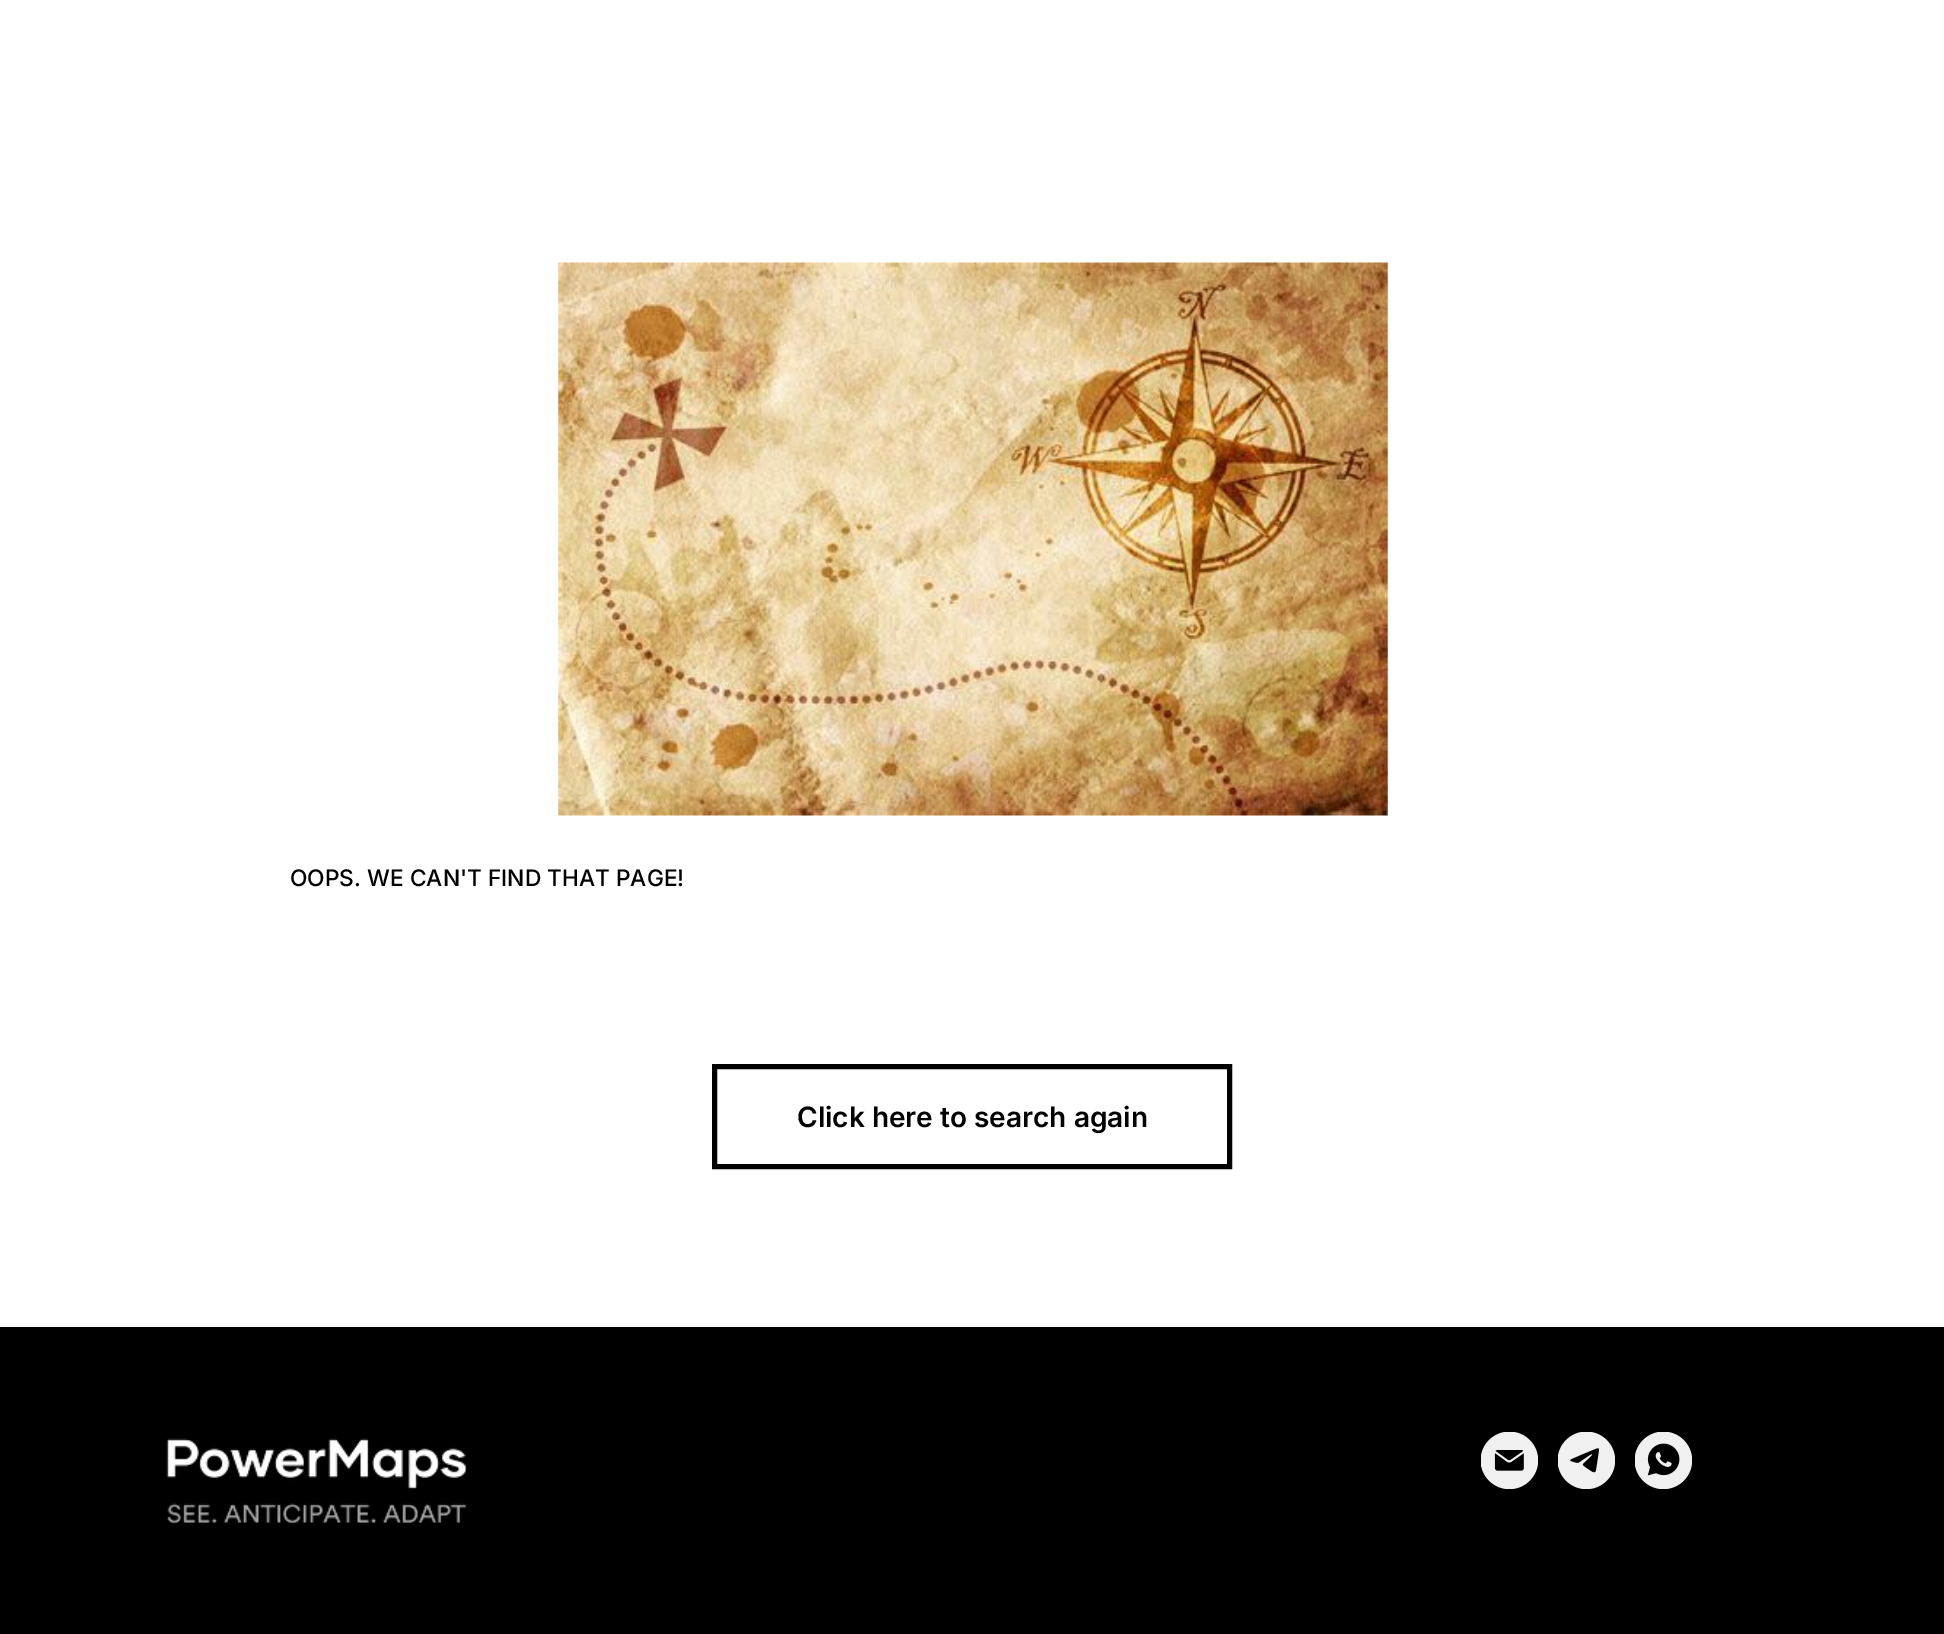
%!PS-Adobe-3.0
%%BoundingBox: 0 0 1944 1634
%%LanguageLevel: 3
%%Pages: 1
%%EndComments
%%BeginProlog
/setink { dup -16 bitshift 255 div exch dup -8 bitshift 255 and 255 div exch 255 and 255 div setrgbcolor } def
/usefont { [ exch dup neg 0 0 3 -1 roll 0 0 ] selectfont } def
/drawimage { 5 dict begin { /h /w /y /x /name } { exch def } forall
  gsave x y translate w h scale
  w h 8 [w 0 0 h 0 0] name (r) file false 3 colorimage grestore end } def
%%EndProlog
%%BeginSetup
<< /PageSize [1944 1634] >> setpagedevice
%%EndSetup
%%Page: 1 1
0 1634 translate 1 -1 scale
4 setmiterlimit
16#FFFFFF setink
0 0 1944 1634 rectfill
(img1.raw) 558 262 830 554 drawimage
/Inter-Medium 22.75 usefont
16#000000 setink
290 886 moveto (OOPS. WE CAN'T FIND THAT PAGE!) show
5 setlinewidth
714.5 1066.5 515 100 rectstroke
/Inter-SemiBold 28 usefont
797 1127 moveto (Click here to search again) show
0 1327 1944 307 rectfill
(img2.raw) 166 1438 301 87 drawimage
(img3.raw) 1481 1432 57 57 drawimage
(img4.raw) 1558 1432 57 57 drawimage
(img5.raw) 1635 1432 57 57 drawimage
showpage
%%EOF
